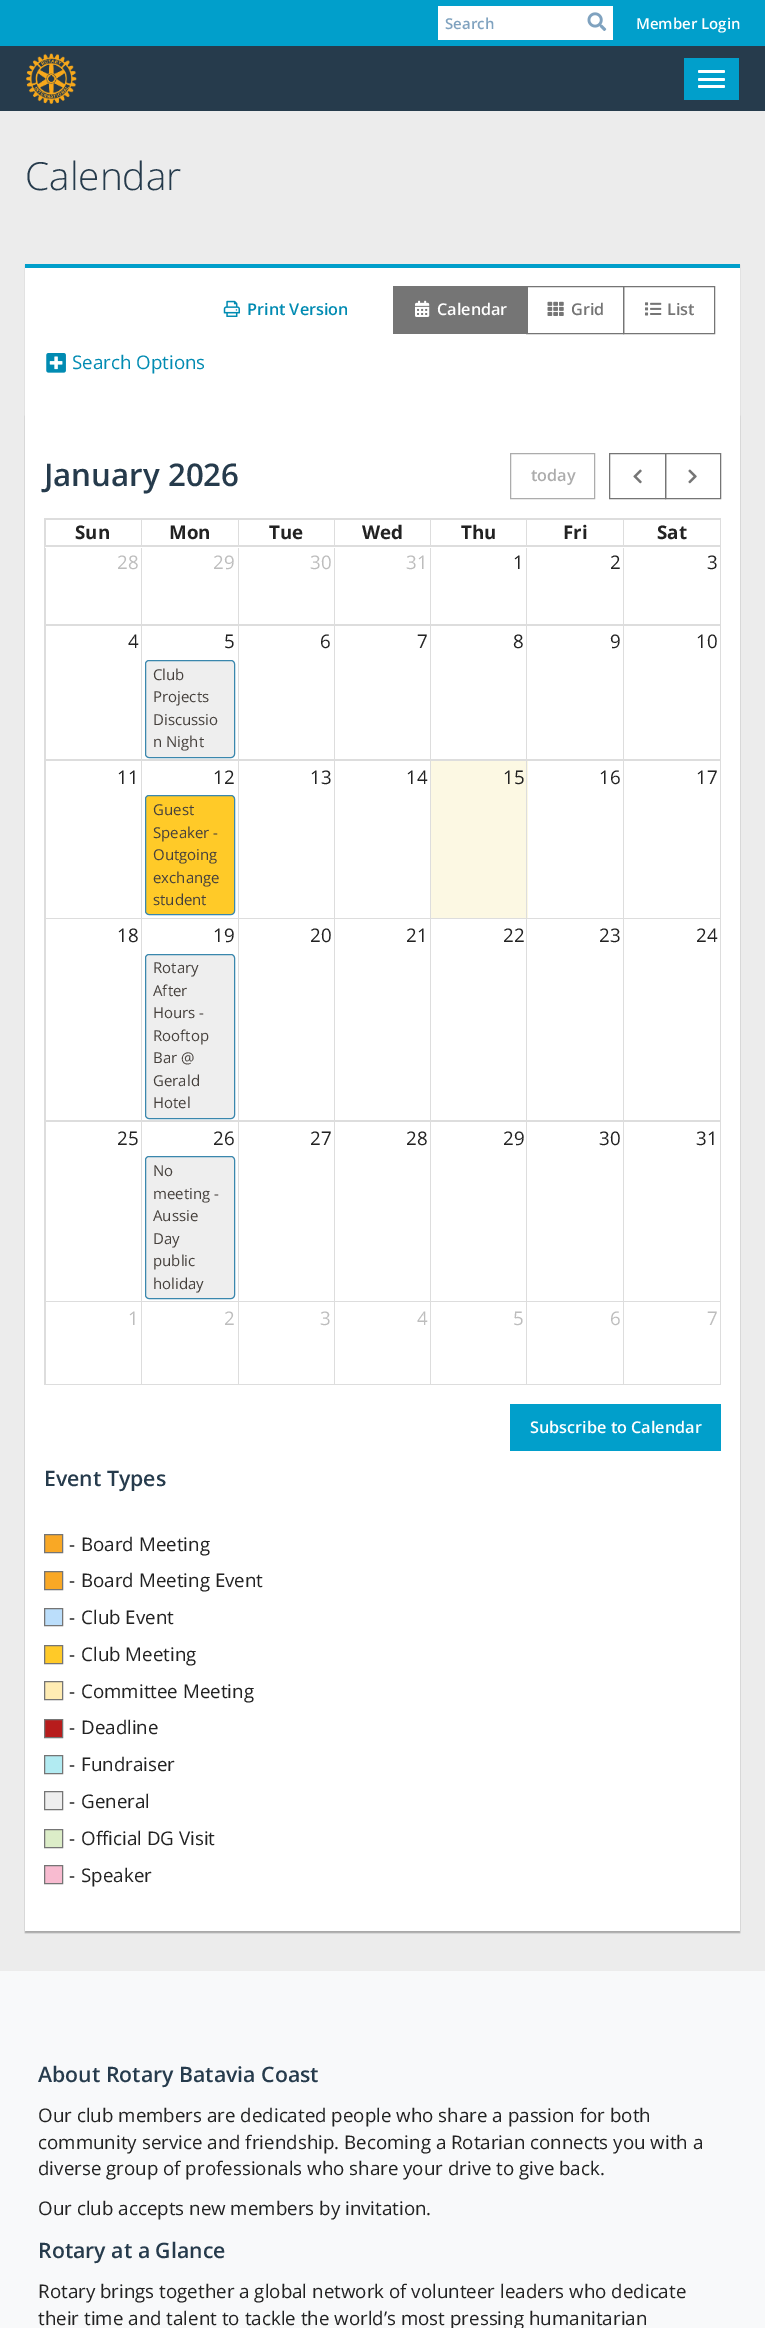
%!PS-Adobe-3.0
%%BoundingBox: 0 0 765 2328
%%LanguageLevel: 3
%%Pages: 1
%%EndComments
%%BeginProlog
/setink { dup -16 bitshift 255 div exch dup -8 bitshift 255 and 255 div exch 255 and 255 div setrgbcolor } def
/usefont { [ exch dup neg 0 0 3 -1 roll 0 0 ] selectfont } def
/setalpha { dup .setfillconstantalpha .setstrokeconstantalpha } def
/rrect { 5 dict begin { /r /h /w /y /x } { exch def } forall
  x r add y moveto x w add y 2 copy h add r arct x w add y h add x 1 index r arct
  x y h add x y r arct x y 2 copy exch w add exch r arct closepath end } def
/softshadow { 12 dict begin { /a /b /q /h /w /y /x } { exch def } forall gsave /was 0 def
  9 -2 -9 { dup b mul 4 div /e exch def 1 sub .425 mul 2.718 exch exp 1 add a .99 .min exch div /now exch def
    1 1 now sub 1 was sub div sub setalpha /was now def
    w h .min e 2 mul add 0 gt { x e sub y e sub w e 2 mul add h e 2 mul add
      q e add b .6 mul add w h .min 2 div e add .min 0 .max rrect fill } if } for grestore end } def
/drawimage { 5 dict begin { /h /w /y /x /name } { exch def } forall
  gsave x y translate w h scale
  w h 8 [w 0 0 h 0 0] name (r) file false 3 colorimage grestore end } def
%%EndProlog
%%BeginSetup
<< /PageSize [765 2328] /PageUsesTransparency true >> setpagedevice
%%EndSetup
%%Page: 1 1
0 .pushpdf14devicefilter
0 2328 translate 1 -1 scale
4 setmiterlimit
16#ECECEC setink
0 0 765 2328 rectfill
16#019FCB setink
0 0 765 46 rectfill
16#FFFFFF setink
438 6 175 34 rectfill
/OpenSans-SemiBold 15 usefont
16#7FA2BF setink
445 29 moveto (Search) show
(img1.raw) 587 12 20 19 drawimage
16#FFFFFF setink
636 29 moveto (Member Login) show
16#263B4C setink
0 46 765 65 rectfill
(img2.raw) 26 53 51 51 drawimage
16#019FCB setink
684 58 55 42 rectfill
16#FFFFFF setink
698 70 27 3 1.5 rrect fill
698 78 27 3 1.5 rrect fill
698 85 27 3 1.5 rrect fill
/OpenSans-Light 38.75 usefont
16#263B4C setink
25 190 moveto (Calendar) show
16#000000 setink
25 265 715 1668 0 0.5 0.15 softshadow
16#FFFFFF setink
25 268 715 147 rectfill
16#019FCB setink
25 264 715 4 rectfill
(img3.raw) 223 300 17 17 drawimage
/OpenSans-SemiBold 16.25 usefont
16#018BB2 setink
247 315 moveto (Print Version) show
16#757575 setink
526.5 286.5 97 47 rectstroke
393 286 135 48 rectfill
(img4.raw) 415 300 15 17 drawimage
16#FFFFFF setink
437 315 moveto (Calendar) show
(img5.raw) 547 301 17 15 drawimage
16#757575 setink
571 315 moveto (Grid) show
623.5 286.5 91 47 rectstroke
(img6.raw) 645 302 17 14 drawimage
667 315 moveto (List) show
(img7.raw) 46 353 20 20 drawimage
/OpenSans-Regular 18.75 usefont
16#018BB2 setink
72 369 moveto (Search Options) show
16#000000 setink
25 416 715 1517 0 0.5 0.15 softshadow
16#FFFFFF setink
25 415 715 1516 rectfill
/OpenSans-SemiBold 31.25 usefont
16#263B4C setink
44 486 moveto (January 2026) show
16#ACACAC setink
510.5 453.5 84 45 rectstroke
/OpenSans-SemiBold 16.25 usefont
531 481 moveto (today) show
16#757575 setink
609.5 453.5 56 45 rectstroke
(img8.raw) 633 469 9 15 drawimage
665.5 453.5 55 45 rectstroke
(img9.raw) 688 469 9 15 drawimage
[
    [44 518 677 1 16#DDDDDD]
    [44 546 677 1 16#DDDDDD]
    [720 546 1 839 16#DDDDDD]
    [720 518 1 30 16#DDDDDD]
    [44 1384 677 1 16#DDDDDD]
    [44 546 1 839 16#DDDDDD]
    [44 518 1 30 16#DDDDDD]
    [623 519 98 1 16#DDDDDD]
    [623 545 98 1 16#DDDDDD]
    [623 519 1 27 16#DDDDDD]
    [526 519 98 1 16#DDDDDD]
    [526 545 98 1 16#DDDDDD]
    [526 519 1 27 16#DDDDDD]
    [430 519 98 1 16#DDDDDD]
    [430 545 98 1 16#DDDDDD]
    [430 519 1 27 16#DDDDDD]
    [334 519 97 1 16#DDDDDD]
    [334 545 97 1 16#DDDDDD]
    [334 519 1 27 16#DDDDDD]
    [238 519 97 1 16#DDDDDD]
    [238 545 97 1 16#DDDDDD]
    [238 519 1 27 16#DDDDDD]
    [141 519 98 1 16#DDDDDD]
    [141 545 98 1 16#DDDDDD]
    [141 519 1 27 16#DDDDDD]
    [45 519 98 1 16#DDDDDD]
    [45 545 98 1 16#DDDDDD]
    [45 519 1 27 16#DDDDDD]
] { aload pop setink rectfill } forall
/OpenSans-Bold 18.75 usefont
16#222222 setink
[
    [(Sun) 75 539]
    [(Mon) 169 539]
    [(Tue) 269 539]
    [(Wed) 362 539]
    [(Thu) 461 539]
    [(Fri) 563 539]
    [(Sat) 657 539]
] { aload pop moveto show } forall
[
    [623 624 97 2 16#DDDDDD]
    [623 548 1 77 16#DDDDDD]
    [526 624 98 1 16#DDDDDD]
    [526 548 1 77 16#DDDDDD]
    [430 624 98 1 16#DDDDDD]
    [430 548 1 77 16#DDDDDD]
    [334 624 97 1 16#DDDDDD]
    [334 548 1 77 16#DDDDDD]
    [238 624 97 1 16#DDDDDD]
    [238 548 1 77 16#DDDDDD]
    [141 624 98 1 16#DDDDDD]
    [141 548 1 77 16#DDDDDD]
    [45 624 98 1 16#DDDDDD]
    [45 548 1 77 16#DDDDDD]
] { aload pop setink rectfill } forall
/OpenSans-Regular 18.75 usefont
16#BDBDBD setink
[
    [(28) 117 569]
    [(29) 213 569]
    [(30) 310 569]
    [(31) 406 569]
] { aload pop moveto show } forall
16#222222 setink
[
    [(1) 513 569]
    [(2) 610 569]
    [(3) 707 569]
] { aload pop moveto show } forall
[
    [623 759 97 2 16#DDDDDD]
    [623 625 1 135 16#DDDDDD]
    [526 625 98 1 16#DDDDDD]
    [526 759 98 1 16#DDDDDD]
    [526 625 1 135 16#DDDDDD]
    [430 625 98 1 16#DDDDDD]
    [430 759 98 1 16#DDDDDD]
    [430 625 1 135 16#DDDDDD]
    [334 625 97 1 16#DDDDDD]
    [334 759 97 1 16#DDDDDD]
    [334 625 1 135 16#DDDDDD]
    [238 625 97 1 16#DDDDDD]
    [238 759 97 1 16#DDDDDD]
    [238 625 1 135 16#DDDDDD]
    [141 625 98 1 16#DDDDDD]
    [141 759 98 1 16#DDDDDD]
    [141 625 1 135 16#DDDDDD]
    [45 625 98 1 16#DDDDDD]
    [45 759 98 1 16#DDDDDD]
    [45 625 1 135 16#DDDDDD]
] { aload pop setink rectfill } forall
16#222222 setink
[
    [(4) 128 648]
    [(5) 224 648]
    [(6) 320 648]
    [(7) 417 648]
    [(8) 513 648]
    [(9) 610 648]
    [(10) 696 648]
] { aload pop moveto show } forall
16#EEEEEE setink
145.5 660.5 89 97 3.5 rrect gsave fill grestore
16#3A87AD setink
stroke
/OpenSans-Regular 15 usefont
16#45403C setink
[
    [(Club) 153 680]
    [(Projects) 153 702]
    [(Discussio) 153 725]
    [(n Night) 153 747]
] { aload pop moveto show } forall
[
    [623 918 97 1 16#DDDDDD]
    [623 760 1 159 16#DDDDDD]
    [526 760 98 1 16#DDDDDD]
    [431 761 97 157 16#FCF8E3]
    [526 918 98 1 16#DDDDDD]
    [526 760 1 159 16#DDDDDD]
    [430 760 98 1 16#DDDDDD]
    [430 918 98 1 16#DDDDDD]
    [430 760 1 159 16#DDDDDD]
    [334 760 97 1 16#DDDDDD]
    [334 918 97 1 16#DDDDDD]
    [334 760 1 159 16#DDDDDD]
    [238 760 97 1 16#DDDDDD]
    [238 918 97 1 16#DDDDDD]
    [238 760 1 159 16#DDDDDD]
    [141 760 98 1 16#DDDDDD]
    [141 918 98 1 16#DDDDDD]
    [141 760 1 159 16#DDDDDD]
    [45 760 98 1 16#DDDDDD]
    [45 918 98 1 16#DDDDDD]
    [45 760 1 159 16#DDDDDD]
] { aload pop setink rectfill } forall
/OpenSans-Regular 18.75 usefont
16#222222 setink
[
    [(11) 117 784]
    [(12) 213 784]
    [(13) 310 784]
    [(14) 406 784]
    [(15) 503 784]
    [(16) 599 784]
    [(17) 696 784]
] { aload pop moveto show } forall
16#FFCA28 setink
145.5 795.5 89 119 3.5 rrect gsave fill grestore
16#3A87AD setink
stroke
/OpenSans-Regular 15 usefont
16#45403C setink
[
    [(Guest) 153 815]
    [(Speaker -) 153 838]
    [(Outgoing) 153 860]
    [(exchange) 153 883]
    [(student) 153 905]
] { aload pop moveto show } forall
[
    [623 1120 97 2 16#DDDDDD]
    [623 918 1 203 16#DDDDDD]
    [526 1120 98 1 16#DDDDDD]
    [526 918 1 203 16#DDDDDD]
    [430 1120 98 1 16#DDDDDD]
    [430 918 1 203 16#DDDDDD]
    [334 1120 97 1 16#DDDDDD]
    [334 918 1 203 16#DDDDDD]
    [238 1120 97 1 16#DDDDDD]
    [238 918 1 203 16#DDDDDD]
    [141 1120 98 1 16#DDDDDD]
    [141 918 1 203 16#DDDDDD]
    [45 1120 98 1 16#DDDDDD]
    [45 918 1 203 16#DDDDDD]
] { aload pop setink rectfill } forall
/OpenSans-Regular 18.75 usefont
16#222222 setink
[
    [(18) 117 942]
    [(19) 213 942]
    [(20) 310 942]
    [(21) 406 942]
    [(22) 503 942]
    [(23) 599 942]
    [(24) 696 942]
] { aload pop moveto show } forall
16#EEEEEE setink
145.5 954.5 89 164 3.5 rrect gsave fill grestore
16#3A87AD setink
stroke
/OpenSans-Regular 15 usefont
16#45403C setink
[
    [(Rotary) 153 973]
    [(After) 153 996]
    [(Hours -) 153 1018]
    [(Rooftop) 153 1041]
    [(Bar @) 153 1063]
    [(Gerald) 153 1086]
    [(Hotel) 153 1108]
] { aload pop moveto show } forall
[
    [623 1301 97 1 16#DDDDDD]
    [623 1121 1 182 16#DDDDDD]
    [526 1121 98 1 16#DDDDDD]
    [526 1301 98 1 16#DDDDDD]
    [526 1121 1 182 16#DDDDDD]
    [430 1121 98 1 16#DDDDDD]
    [430 1301 98 1 16#DDDDDD]
    [430 1121 1 182 16#DDDDDD]
    [334 1121 97 1 16#DDDDDD]
    [334 1301 97 1 16#DDDDDD]
    [334 1121 1 182 16#DDDDDD]
    [238 1121 97 1 16#DDDDDD]
    [238 1301 97 1 16#DDDDDD]
    [238 1121 1 182 16#DDDDDD]
    [141 1121 98 1 16#DDDDDD]
    [141 1301 98 1 16#DDDDDD]
    [141 1121 1 182 16#DDDDDD]
    [45 1121 98 1 16#DDDDDD]
    [45 1301 98 1 16#DDDDDD]
    [45 1121 1 263 16#DDDDDD]
] { aload pop setink rectfill } forall
/OpenSans-Regular 18.75 usefont
16#222222 setink
[
    [(25) 117 1145]
    [(26) 213 1145]
    [(27) 310 1145]
    [(28) 406 1145]
    [(29) 503 1145]
    [(30) 599 1145]
    [(31) 696 1145]
] { aload pop moveto show } forall
16#EEEEEE setink
145.5 1156.5 89 142 3.5 rrect gsave fill grestore
16#3A87AD setink
stroke
/OpenSans-Regular 15 usefont
16#45403C setink
[
    [(No) 153 1176]
    [(meeting -) 153 1199]
    [(Aussie) 153 1221]
    [(Day) 153 1244]
    [(public) 153 1266]
    [(holiday) 153 1289]
] { aload pop moveto show } forall
[
    [141 1301 1 83 16#DDDDDD]
    [238 1301 1 83 16#DDDDDD]
    [334 1301 1 83 16#DDDDDD]
    [430 1301 1 83 16#DDDDDD]
    [526 1301 1 83 16#DDDDDD]
    [623 1301 1 83 16#DDDDDD]
] { aload pop setink rectfill } forall
/OpenSans-Regular 18.75 usefont
16#BDBDBD setink
[
    [(1) 128 1325]
    [(2) 224 1325]
    [(3) 320 1325]
    [(4) 417 1325]
    [(5) 513 1325]
    [(6) 610 1325]
    [(7) 707 1325]
] { aload pop moveto show } forall
16#019FCB setink
510 1404 211 47 rectfill
/OpenSans-SemiBold 16.25 usefont
16#FFFFFF setink
530 1433 moveto (Subscribe to Calendar) show
/OpenSans-SemiBold 21.25 usefont
16#263B4C setink
44 1486 moveto (Event Types) show
16#F9A825 setink
44.5 1534.5 moveto 62.5 1534.5 lineto 62.5 1552.5 lineto 44.5 1552.5 lineto closepath gsave fill grestore
16#757575 setink
stroke
/OpenSans-Regular 18.75 usefont
16#222222 setink
69 1551 moveto (-) show
81 1551 moveto (Board Meeting) show
16#F9A825 setink
44.5 1571.5 moveto 62.5 1571.5 lineto 62.5 1589.5 lineto 44.5 1589.5 lineto closepath gsave fill grestore
16#757575 setink
stroke
16#222222 setink
69 1587 moveto (-) show
81 1587 moveto (Board Meeting Event) show
16#BBDEFB setink
44.5 1608.5 moveto 62.5 1608.5 lineto 62.5 1625.5 lineto 44.5 1625.5 lineto closepath gsave fill grestore
16#757575 setink
stroke
16#222222 setink
69 1624 moveto (-) show
81 1624 moveto (Club Event) show
16#FFCA28 setink
44.5 1645.5 moveto 62.5 1645.5 lineto 62.5 1663.5 lineto 44.5 1663.5 lineto closepath gsave fill grestore
16#757575 setink
stroke
16#222222 setink
69 1661 moveto (-) show
81 1661 moveto (Club Meeting) show
16#FFECB3 setink
44.5 1681.5 moveto 62.5 1681.5 lineto 62.5 1699.5 lineto 44.5 1699.5 lineto closepath gsave fill grestore
16#757575 setink
stroke
16#222222 setink
69 1698 moveto (-) show
81 1698 moveto (Committee Meeting) show
16#B71C1C setink
44.5 1719.5 moveto 62.5 1719.5 lineto 62.5 1737.5 lineto 44.5 1737.5 lineto closepath gsave fill grestore
16#757575 setink
stroke
16#222222 setink
69 1734 moveto (-) show
81 1734 moveto (Deadline) show
16#B2EBF2 setink
44.5 1755.5 moveto 62.5 1755.5 lineto 62.5 1773.5 lineto 44.5 1773.5 lineto closepath gsave fill grestore
16#757575 setink
stroke
16#222222 setink
69 1771 moveto (-) show
81 1771 moveto (Fundraiser) show
16#EEEEEE setink
44.5 1791.5 moveto 62.5 1791.5 lineto 62.5 1809.5 lineto 44.5 1809.5 lineto closepath gsave fill grestore
16#757575 setink
stroke
16#222222 setink
69 1808 moveto (-) show
81 1808 moveto (General) show
16#DCEDC8 setink
44.5 1829.5 moveto 62.5 1829.5 lineto 62.5 1847.5 lineto 44.5 1847.5 lineto closepath gsave fill grestore
16#757575 setink
stroke
16#222222 setink
69 1845 moveto (-) show
81 1845 moveto (Official DG Visit) show
16#F8BBD0 setink
44.5 1865.5 moveto 62.5 1865.5 lineto 62.5 1883.5 lineto 44.5 1883.5 lineto closepath gsave fill grestore
16#757575 setink
stroke
16#222222 setink
69 1882 moveto (-) show
81 1882 moveto (Speaker) show
16#F8F9FA setink
0 1971 765 357 rectfill
/OpenSans-SemiBold 21.25 usefont
16#263B4C setink
38 2082 moveto (About Rotary Batavia Coast) show
/OpenSans-Regular 18.75 usefont
16#222222 setink
[
    [(Our club members are dedicated people who share a passion for both) 38 2122]
    [(community service and friendship. Becoming a Rotarian connects you with a) 38 2149]
    [(diverse group of professionals who share your drive to give back.) 38 2175]
    [(Our club accepts new members by invitation.) 38 2215]
] { aload pop moveto show } forall
/OpenSans-SemiBold 21.25 usefont
16#263B4C setink
38 2258 moveto (Rotary at a Glance) show
/OpenSans-Regular 18.75 usefont
16#222222 setink
38 2298 moveto (Rotary brings together a global network of volunteer leaders who dedicate) show
38 2325 moveto (their time and talent to tackle the world’s most pressing humanitarian) show
.poppdf14devicefilter showpage
%%EOF
